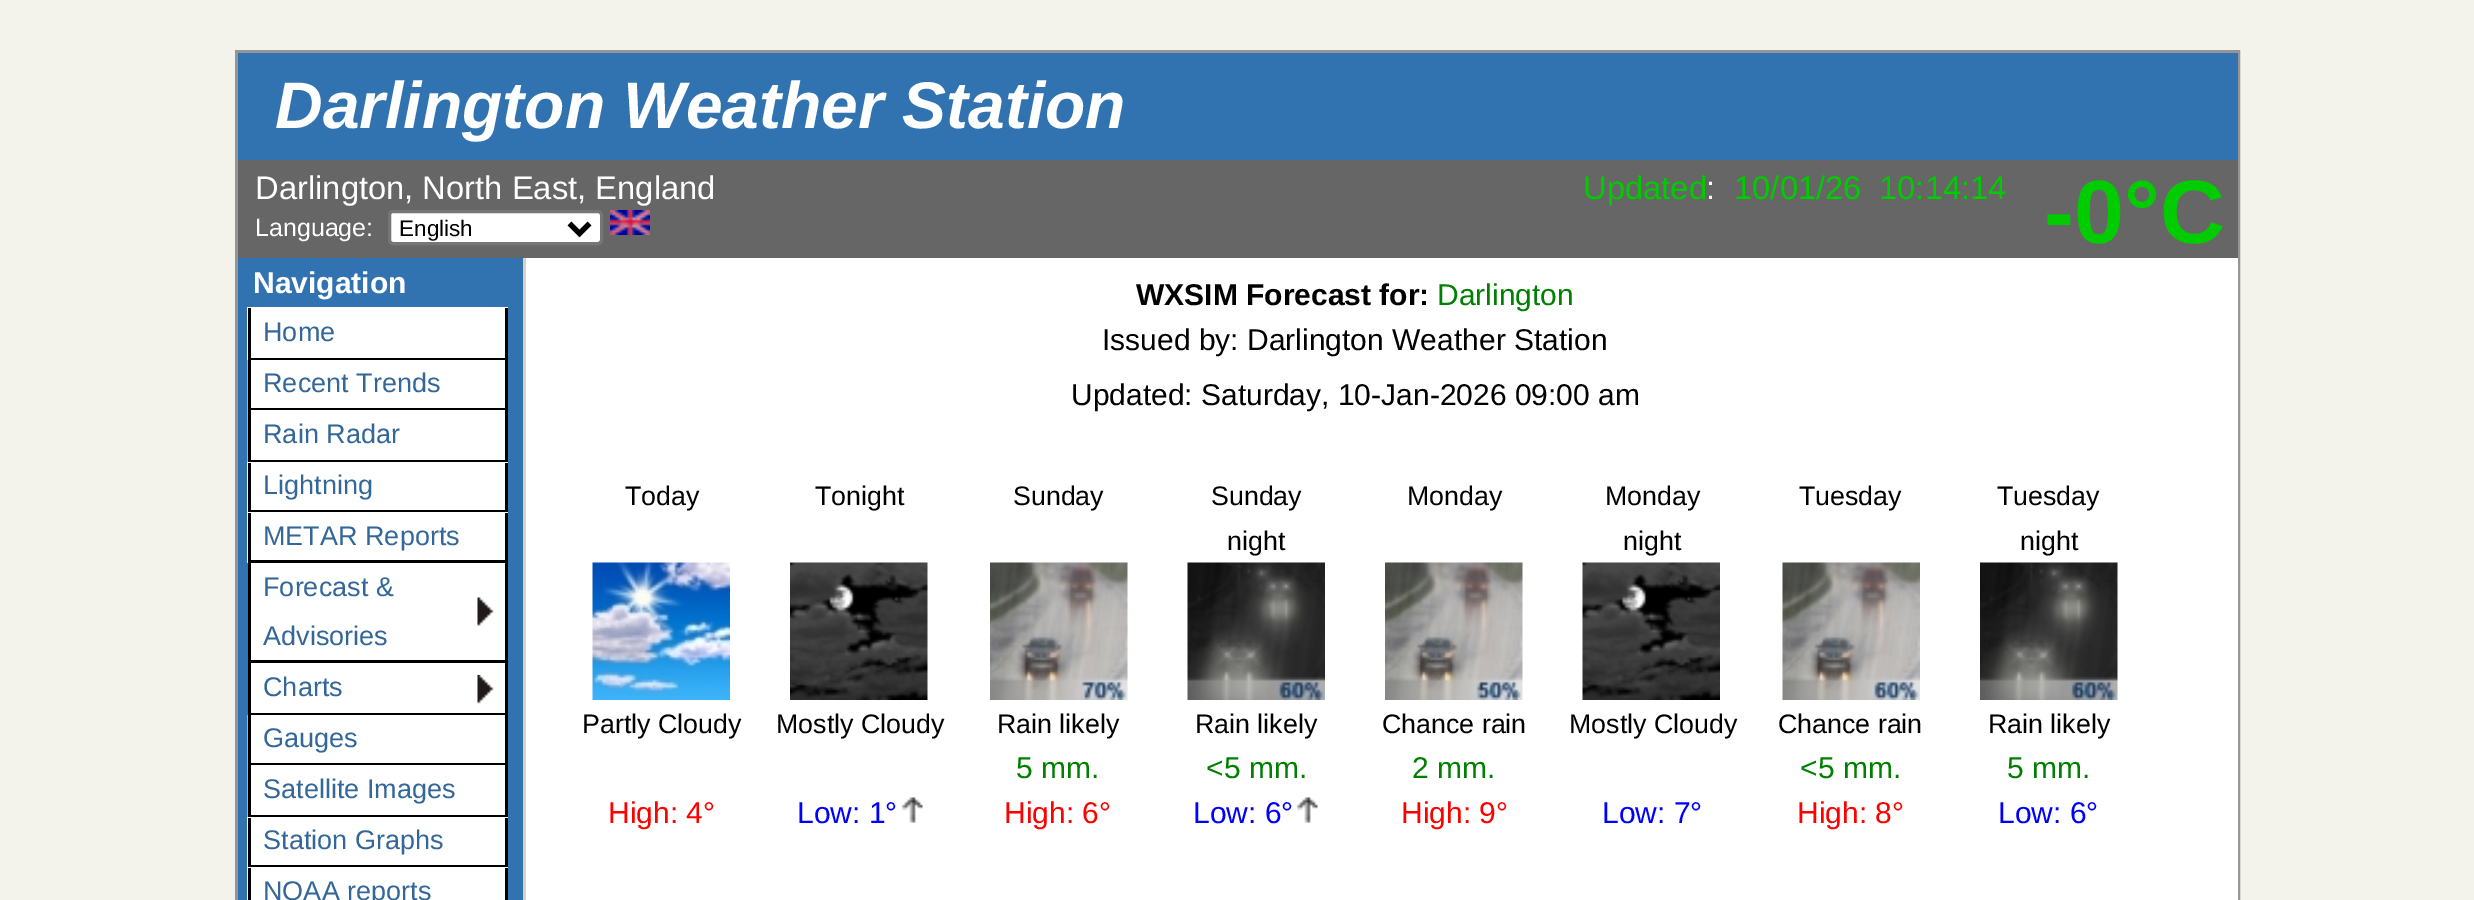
%!PS-Adobe-3.0
%%BoundingBox: 0 0 2474 900
%%LanguageLevel: 3
%%Pages: 1
%%EndComments
%%BeginProlog
/setink { dup -16 bitshift 255 div exch dup -8 bitshift 255 and 255 div exch 255 and 255 div setrgbcolor } def
/usefont { [ exch dup neg 0 0 3 -1 roll 0 0 ] selectfont } def
/rrect { 5 dict begin { /r /h /w /y /x } { exch def } forall
  x r add y moveto x w add y 2 copy h add r arct x w add y h add x 1 index r arct
  x y h add x y r arct x y 2 copy exch w add exch r arct closepath end } def
/drawimage { 5 dict begin { /h /w /y /x /name } { exch def } forall
  gsave x y translate w h scale
  w h 8 [w 0 0 h 0 0] name (r) file false 3 colorimage grestore end } def
%%EndProlog
%%BeginSetup
<< /PageSize [2474 900] >> setpagedevice
%%EndSetup
%%Page: 1 1
0 900 translate 1 -1 scale
4 setmiterlimit
16#F3F2EB setink
0 0 2474 900 rectfill
16#959596 setink
3 setlinewidth
236.5 51.5 2002 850 rectstroke
16#3173B1 setink
238 53 2000 107 rectfill
/LiberationSans-BoldItalic 66 usefont
16#FFFFFF setink
275 128 moveto (Darlington Weather Station) show
16#666666 setink
238 160 2000 98 rectfill
/LiberationSans-Regular 32.75 usefont
16#FFFFFF setink
255 199 moveto (Darlington, North East, England) show
/LiberationSans-Regular 25 usefont
255 236 moveto (Language:) show
389.5 211.5 212 32 3.5 rrect gsave fill grestore
16#767676 setink
stroke
16#000000 setink
5 setlinewidth
569.5 223.5 moveto 579.5 233.5 lineto 589.5 223.5 lineto stroke
/LiberationSans-Regular 22.5 usefont
399 236 moveto (English) show
(img1.raw) 610 210 40 25 drawimage
/LiberationSans-Regular 32.75 usefont
16#00CC00 setink
1583 199 moveto (Updated) show
16#FFFFFF setink
1706 199 moveto (:) show
16#00CC00 setink
1734 199 moveto (10/01/26) show
1879 199 moveto (10:14:14) show
/LiberationSans-Bold 90 usefont
2044 243 moveto (-0°C) show
16#3173B1 setink
238 258 285 642 rectfill
/LiberationSans-Bold 30 usefont
16#FFFFFF setink
253 293 moveto (Navigation) show
[
    [247 307 261 53 16#FFFFFF]
    [505 308 3 155 16#000000]
    [248 358 260 2 16#000000]
    [248 308 3 52 16#000000]
] { aload pop setink rectfill } forall
/LiberationSans-Regular 27 usefont
16#336699 setink
263 341 moveto (Home) show
[
    [251 360 254 48 16#FFFFFF]
    [247 360 1 50 16#98B9D8]
    [248 408 260 2 16#000000]
    [248 360 3 50 16#000000]
] { aload pop setink rectfill } forall
16#336699 setink
263 392 moveto (Recent Trends) show
16#FFFFFF setink
251 410 254 50 rectfill
(img2.raw) 247 410 1 52 drawimage
16#000000 setink
248 460 260 2 rectfill
248 410 3 53 rectfill
16#336699 setink
263 443 moveto (Rain Radar) show
[
    [247 462 261 50 16#FFFFFF]
    [505 463 3 50 16#000000]
    [248 510 260 2 16#000000]
    [248 463 3 50 16#000000]
] { aload pop setink rectfill } forall
16#336699 setink
263 494 moveto (Lightning) show
[
    [247 512 261 51 16#FFFFFF]
    [505 513 3 305 16#000000]
    [248 560 260 3 16#000000]
    [248 513 3 50 16#000000]
] { aload pop setink rectfill } forall
16#336699 setink
263 545 moveto (METAR Reports) show
16#FFFFFF setink
251 563 254 97 rectfill
(img3.raw) 477 597 17 29 drawimage
16#000000 setink
248 660 260 3 rectfill
248 563 3 100 rectfill
16#336699 setink
263 596 moveto (Forecast &) show
263 645 moveto (Advisories) show
16#FFFFFF setink
251 663 254 50 rectfill
(img4.raw) 477 675 17 29 drawimage
16#000000 setink
248 713 260 2 rectfill
248 663 3 52 rectfill
16#336699 setink
263 696 moveto (Charts) show
[
    [251 715 254 48 16#FFFFFF]
    [247 715 1 50 16#98B9D8]
    [248 763 260 2 16#000000]
    [248 715 3 50 16#000000]
] { aload pop setink rectfill } forall
16#336699 setink
263 747 moveto (Gauges) show
16#FFFFFF setink
251 765 254 50 rectfill
(img2.raw) 247 765 1 52 drawimage
16#000000 setink
248 815 260 2 rectfill
248 765 3 53 rectfill
16#336699 setink
263 798 moveto (Satellite Images) show
[
    [247 817 261 50 16#FFFFFF]
    [505 818 3 50 16#000000]
    [248 865 260 2 16#000000]
    [248 818 3 50 16#000000]
] { aload pop setink rectfill } forall
16#336699 setink
263 849 moveto (Station Graphs) show
[
    [247 867 261 33 16#FFFFFF]
    [505 868 3 32 16#000000]
    [248 868 3 32 16#000000]
] { aload pop setink rectfill } forall
16#336699 setink
263 900 moveto (NOAA reports) show
16#FFFFFF setink
526 258 1712 642 rectfill
16#D8D2C3 setink
523 258 3 642 rectfill
/LiberationSans-Bold 30 usefont
16#000000 setink
1136 305 moveto (WXSIM Forecast for:) show
/LiberationSans-Regular 30 usefont
16#008000 setink
1437 305 moveto (Darlington) show
16#000000 setink
1102 350 moveto (Issued by: Darlington Weather Station) show
1071 405 moveto (Updated: Saturday, 10-Jan-2026 09:00 am) show
/LiberationSans-Regular 26.75 usefont
625 505 moveto (Today) show
(img5.raw) 592 562 138 138 drawimage
582 733 moveto (Partly Cloudy) show
815 505 moveto (Tonight) show
(img6.raw) 790 562 138 138 drawimage
776 733 moveto (Mostly Cloudy) show
1013 505 moveto (Sunday) show
(img7.raw) 990 562 138 138 drawimage
[
    [(Rain likely) 997 733]
    [(Sunday) 1211 505]
    [(night) 1227 550]
] { aload pop moveto show } forall
(img8.raw) 1187 562 138 138 drawimage
1195 733 moveto (Rain likely) show
1407 505 moveto (Monday) show
(img9.raw) 1385 562 138 138 drawimage
[
    [(Chance rain) 1382 733]
    [(Monday) 1605 505]
    [(night) 1623 550]
] { aload pop moveto show } forall
(img10.raw) 1582 562 138 138 drawimage
1569 733 moveto (Mostly Cloudy) show
1799 505 moveto (Tuesday) show
(img11.raw) 1782 562 138 138 drawimage
[
    [(Chance rain) 1778 733]
    [(Tuesday) 1997 505]
    [(night) 2020 550]
] { aload pop moveto show } forall
(img12.raw) 1980 562 138 138 drawimage
1988 733 moveto (Rain likely) show
/LiberationSans-Regular 30 usefont
16#008000 setink
[
    [(5 mm.) 1016 778]
    [(<5 mm.) 1206 778]
    [(2 mm.) 1412 778]
    [(<5 mm.) 1800 778]
    [(5 mm.) 2007 778]
] { aload pop moveto show } forall
16#FF0000 setink
608 823 moveto (High: 4°) show
16#0000FF setink
797 823 moveto (Low: 1°) show
(img13.raw) 901 797 22 26 drawimage
16#FF0000 setink
1004 823 moveto (High: 6°) show
16#0000FF setink
1193 823 moveto (Low: 6°) show
(img13.raw) 1296 797 22 26 drawimage
16#FF0000 setink
1401 823 moveto (High: 9°) show
16#0000FF setink
1602 823 moveto (Low: 7°) show
16#FF0000 setink
1797 823 moveto (High: 8°) show
16#0000FF setink
1998 823 moveto (Low: 6°) show
showpage
%%EOF
